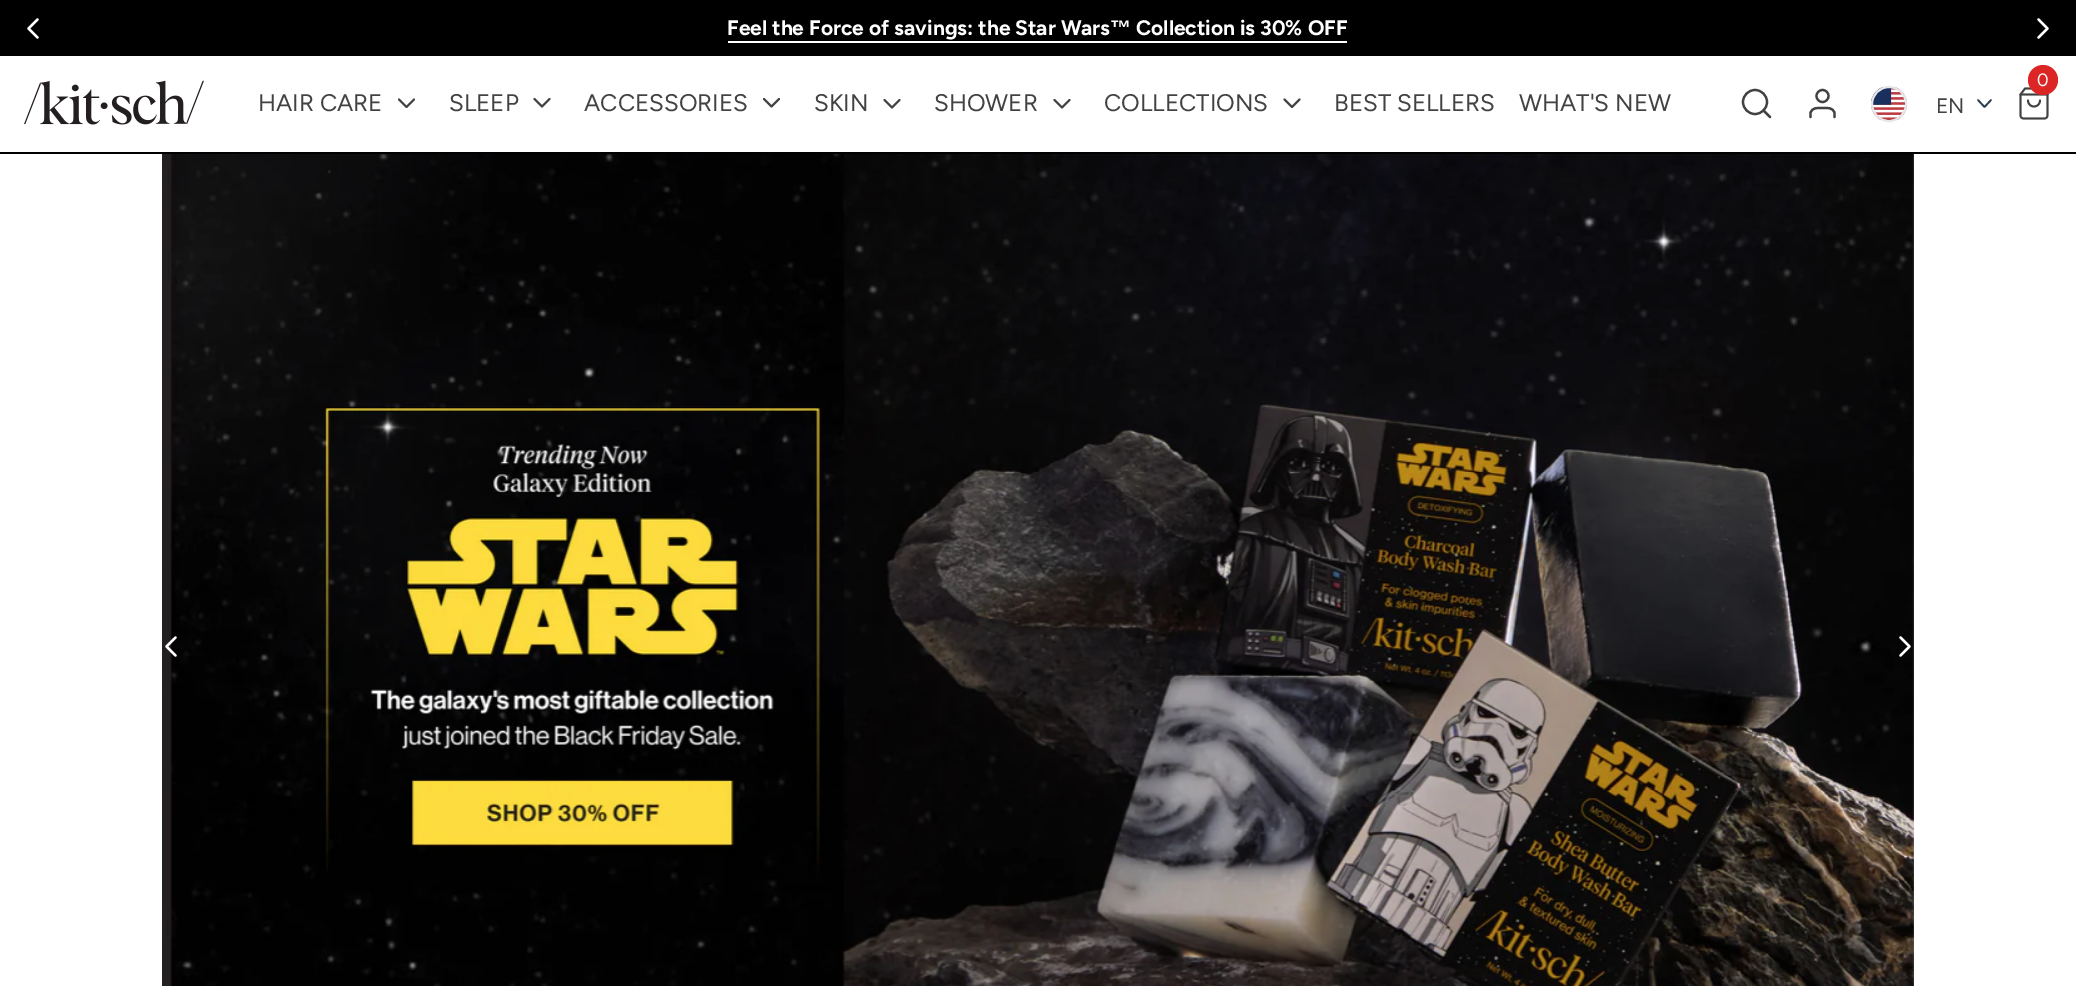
%!PS-Adobe-3.0
%%BoundingBox: 0 0 2076 986
%%LanguageLevel: 3
%%Pages: 1
%%EndComments
%%BeginProlog
/setink { dup -16 bitshift 255 div exch dup -8 bitshift 255 and 255 div exch 255 and 255 div setrgbcolor } def
/usefont { [ exch dup neg 0 0 3 -1 roll 0 0 ] selectfont } def
/disc { newpath 0 360 arc closepath } def
/drawimage { 5 dict begin { /h /w /y /x /name } { exch def } forall
  gsave x y translate w h scale
  w h 8 [w 0 0 h 0 0] name (r) file false 3 colorimage grestore end } def
%%EndProlog
%%BeginSetup
<< /PageSize [2076 986] >> setpagedevice
%%EndSetup
%%Page: 1 1
0 986 translate 1 -1 scale
4 setmiterlimit
16#FFFFFF setink
0 0 2076 986 rectfill
16#000000 setink
0 0 2076 56 rectfill
16#FFFFFF setink
2.2 setlinewidth
1 setlinecap
1 setlinejoin
37.5 37.5 moveto 28.5 28.5 lineto 37.5 19.5 lineto stroke
/Figtree-Bold 21 usefont
727 35 moveto (Feel the Force of savings: the Star Wars) show
728 41 619 2 rectfill
/LiberationSans-Bold 21 usefont
1110 35 moveto (™) show
/Figtree-Bold 21 usefont
1136 35 moveto (Collection is 30% OFF) show
2038.5 37.5 moveto 2047.5 28.5 lineto 2038.5 19.5 lineto stroke
16#000000 setink
0 152 2076 2 rectfill
(img1.raw) 24 80 180 45 drawimage
/Figtree-Regular 24 usefont
16#424242 setink
258 111 moveto (HAIR CARE) show
1.9 setlinewidth
399 99.5 moveto 406.5 107 lineto 414 99.5 lineto stroke
449 111 moveto (SLEEP) show
534.5 99 moveto 542 106.5 lineto 549.5 99 lineto stroke
584 111 moveto (ACCESSORIES) show
764 99 moveto 771.5 106.5 lineto 779 99 lineto stroke
814 111 moveto (SKIN) show
884.5 100 moveto 892 107.5 lineto 899.5 100 lineto stroke
934 111 moveto (SHOWER) show
1054.5 100 moveto 1062 107.5 lineto 1069.5 100 lineto stroke
1104 111 moveto (COLLECTIONS) show
1284.5 99.5 moveto 1292 107 lineto 1299.5 99.5 lineto stroke
1334 111 moveto (BEST SELLERS) show
1519 111 moveto (WHAT'S NEW) show
(img2.raw) 2019 87 30 33 drawimage
16#DC2626 setink
2043 80 15 disc fill
/Figtree-Regular 18 usefont
16#FFFFFF setink
2037 86 moveto (0) show
16#424242 setink
2.2 setlinewidth
0 setlinecap
0 setlinejoin
1755 102 12 disc stroke
1 setlinecap
1 setlinejoin
1770 117 moveto 1763.5 110.5 lineto stroke
1834.5 117 moveto 1834.5 113 lineto 1833 107 1827 108 1822.5 108 curveto 1818 108 1812 107 1810.5 113 curveto 1810.5 117 lineto stroke
0 setlinecap
0 setlinejoin
1822.5 96 6 disc stroke
(img3.raw) 1871 87 36 33 drawimage
16#E5E7EB setink
2 setlinewidth
1889 104 17 disc stroke
/Figtree-Regular 21 usefont
16#424242 setink
1936 113 moveto (EN) show
16#2C3E50 setink
1.7 setlinewidth
1 setlinecap
1 setlinejoin
1978 100 moveto 1984.5 107 lineto 1991 100 lineto stroke
(img4.raw) 162 154 1752 832 drawimage
16#FFFFFF setink
2.2 setlinewidth
175.5 655.5 moveto 166.5 646.5 lineto 175.5 637.5 lineto stroke
1900.5 655.5 moveto 1909.5 646.5 lineto 1900.5 637.5 lineto stroke
showpage
%%EOF
